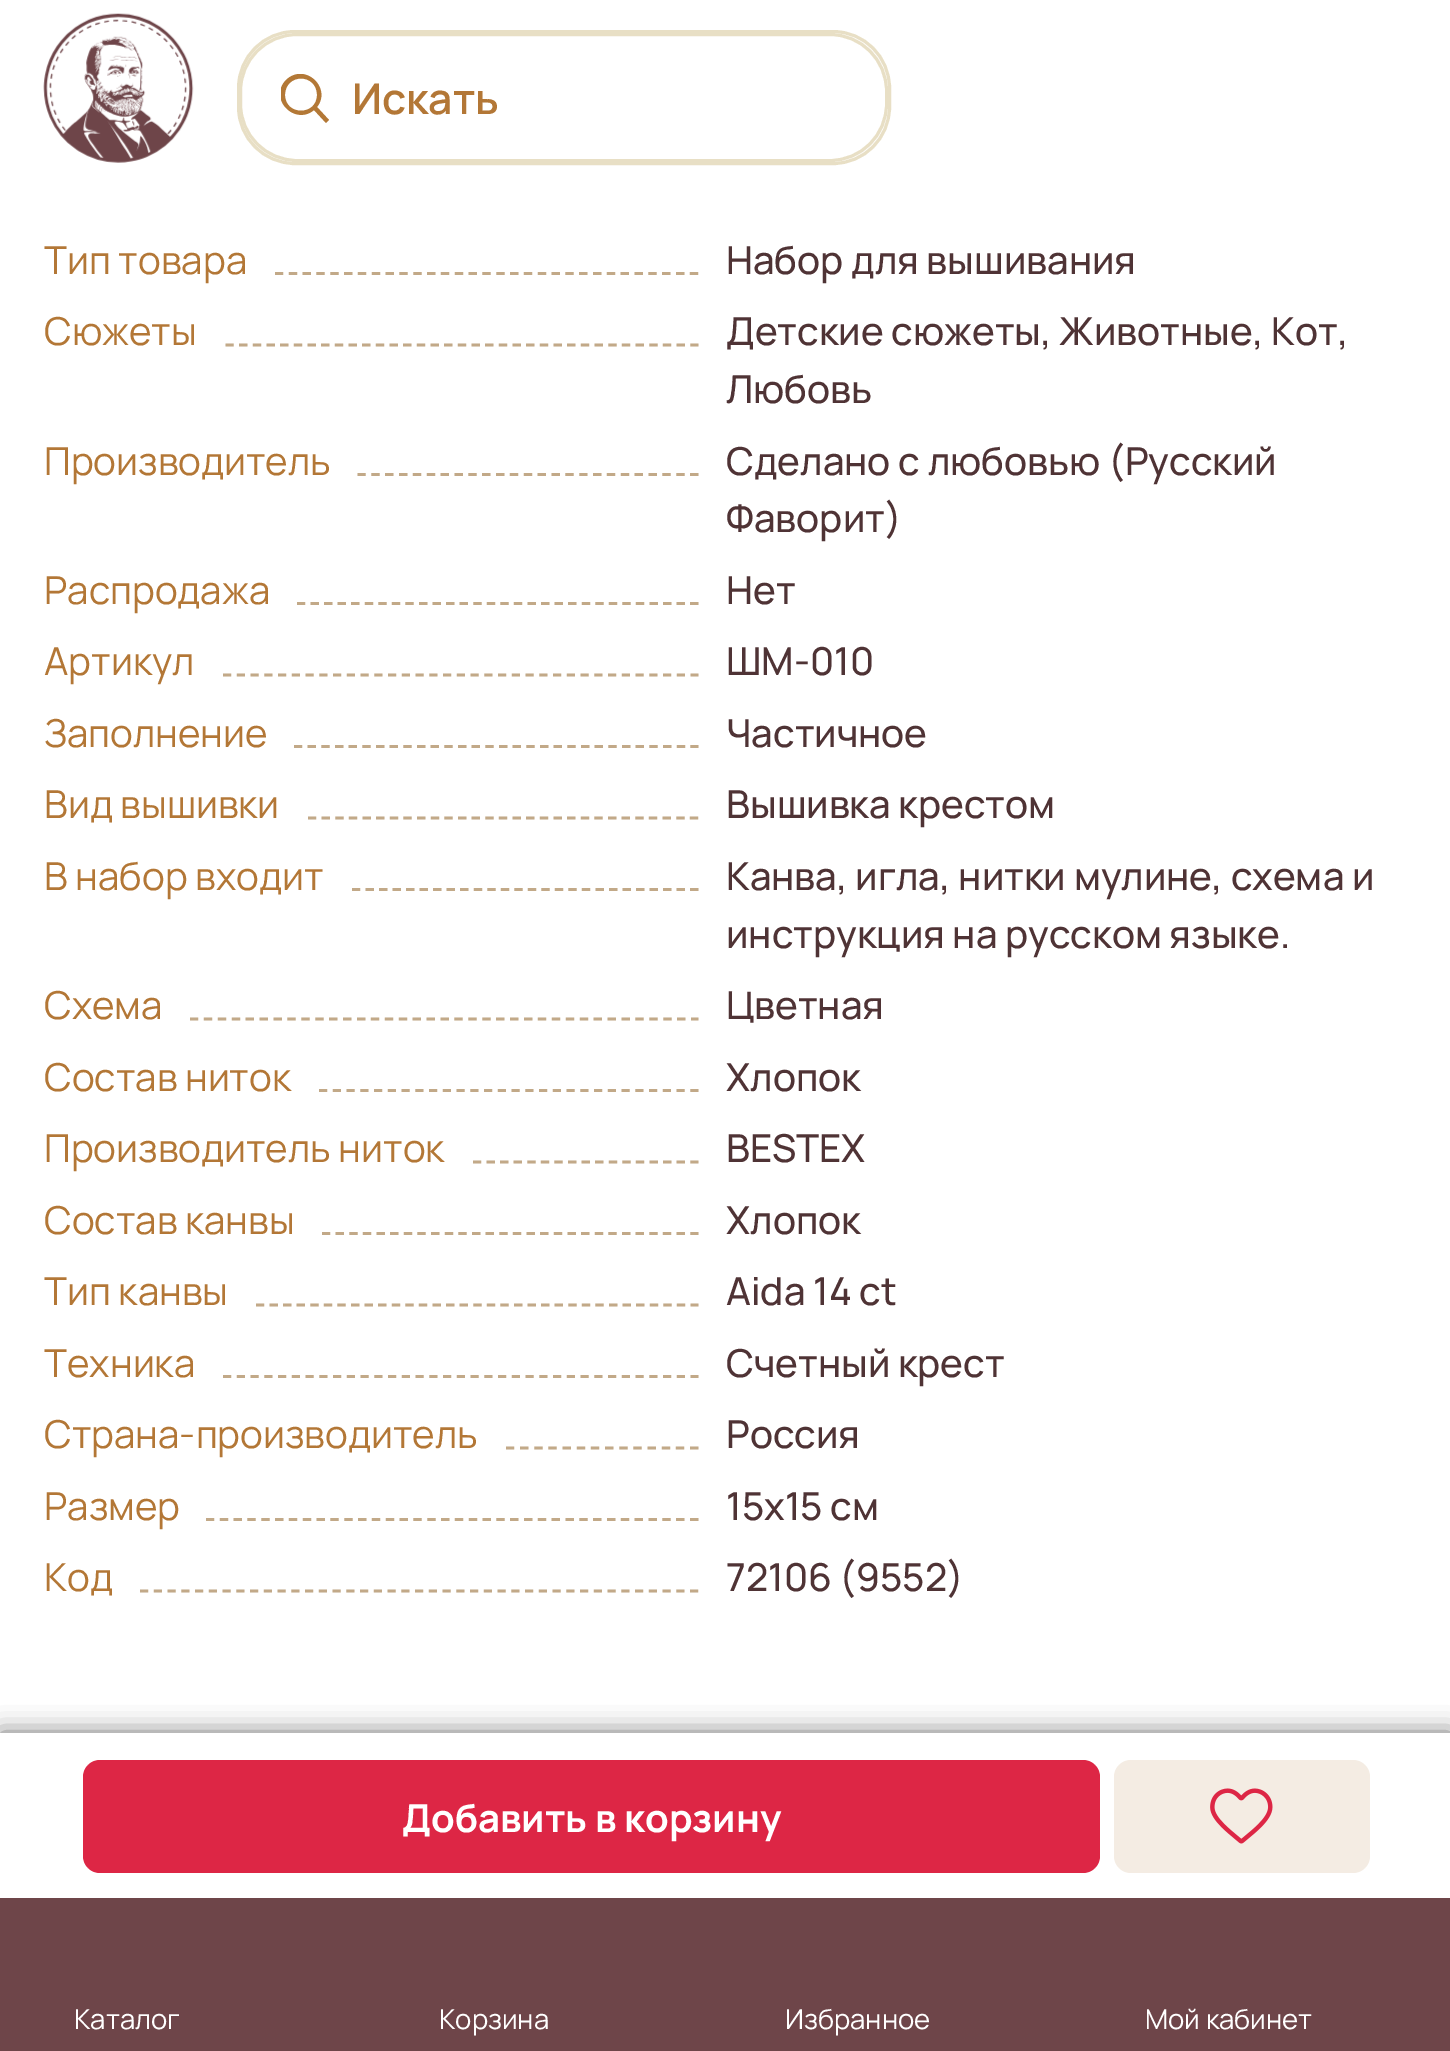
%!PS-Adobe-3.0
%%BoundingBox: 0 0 1450 2051
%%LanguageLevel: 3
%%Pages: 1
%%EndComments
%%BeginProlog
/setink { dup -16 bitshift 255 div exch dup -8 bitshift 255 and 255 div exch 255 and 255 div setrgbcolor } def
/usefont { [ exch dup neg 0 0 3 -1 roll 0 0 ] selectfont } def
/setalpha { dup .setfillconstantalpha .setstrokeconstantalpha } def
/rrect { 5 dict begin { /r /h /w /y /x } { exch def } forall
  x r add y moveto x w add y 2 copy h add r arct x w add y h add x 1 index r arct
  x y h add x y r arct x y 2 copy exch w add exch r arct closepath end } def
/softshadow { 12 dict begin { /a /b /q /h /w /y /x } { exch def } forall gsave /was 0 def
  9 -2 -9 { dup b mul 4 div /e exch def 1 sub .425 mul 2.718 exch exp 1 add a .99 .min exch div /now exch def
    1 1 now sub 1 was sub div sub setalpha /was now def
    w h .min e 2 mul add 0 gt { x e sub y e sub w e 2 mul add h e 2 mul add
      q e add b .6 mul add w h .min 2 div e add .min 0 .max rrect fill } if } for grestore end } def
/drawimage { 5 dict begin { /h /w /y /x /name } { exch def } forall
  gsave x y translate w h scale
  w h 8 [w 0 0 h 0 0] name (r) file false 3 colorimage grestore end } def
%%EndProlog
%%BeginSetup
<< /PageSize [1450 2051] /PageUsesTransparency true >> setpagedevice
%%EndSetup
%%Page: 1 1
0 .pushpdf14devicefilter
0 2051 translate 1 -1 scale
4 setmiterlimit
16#FFFFFF setink
0 0 1450 2051 rectfill
(img1.raw) 43 13 151 150 drawimage
16#E8DFC5 setink
3 setlinewidth
238.5 31.5 651 132 56.5 rrect stroke
16#FFFFFF setink
240.5 34.5 646 126 56.5 rrect gsave fill grestore
16#E8DFC5 setink
stroke
gsave
281 74 49 50 rectclip
16#B37836 setink
329 120 moveto 317 107 lineto 332 88 305 62 286 80 curveto 268 99 295 126 314 110 curveto 326 123 lineto closepath 285 95 moveto 285 73 317 73 317 95 curveto 317 116 285 116 285 95 curveto closepath fill
grestore
/Manrope-SemiBold 42.5 usefont
16#B37736 setink
352 114 moveto (Искать) show
/Manrope-Regular 38.5 usefont
44 274 moveto (Тип товара) show
16#C2A988 setink
2.8 setlinewidth
[8.25 5.58] 0 setdash
275 273.5 moveto 698.5 273.5 lineto stroke
/Manrope-Medium 38.5 usefont
16#4F3335 setink
726 274 moveto (Набор для вышивания) show
/Manrope-Regular 38.5 usefont
16#B37736 setink
44 345 moveto (Сюжеты) show
16#C2A988 setink
[8.25 5.42] 0 setdash
225.5 345 moveto 698.5 345 lineto stroke
/Manrope-Medium 38.5 usefont
16#4F3335 setink
726 345 moveto (Детские сюжеты, Животные, Кот,) show
726 403 moveto (Любовь) show
/Manrope-Regular 38.5 usefont
16#B37736 setink
44 475 moveto (Производитель) show
16#C2A988 setink
[8.25 5.61] 0 setdash
357.5 474.5 moveto 698.5 474.5 lineto stroke
/Manrope-Medium 38.5 usefont
16#4F3335 setink
726 475 moveto (Сделано с любовью \(Русский) show
726 532 moveto (Фаворит\)) show
/Manrope-Regular 38.5 usefont
16#B37736 setink
44 604 moveto (Распродажа) show
16#C2A988 setink
[8.25 5.31] 0 setdash
297 603.5 moveto 698.5 603.5 lineto stroke
/Manrope-Medium 38.5 usefont
16#4F3335 setink
726 604 moveto (Нет) show
/Manrope-Regular 38.5 usefont
16#B37736 setink
44 675 moveto (Артикул) show
16#C2A988 setink
[8.25 5.5] 0 setdash
223 675 moveto 698.5 675 lineto stroke
/Manrope-Medium 38.5 usefont
16#4F3335 setink
726 675 moveto (ШМ-010) show
/Manrope-Regular 38.5 usefont
16#B37736 setink
44 747 moveto (Заполнение) show
16#C2A988 setink
[8.25 5.42] 0 setdash
294 746.5 moveto 698.5 746.5 lineto stroke
/Manrope-Medium 38.5 usefont
16#4F3335 setink
726 747 moveto (Частичное) show
/Manrope-Regular 38.5 usefont
16#B37736 setink
44 818 moveto (Вид вышивки) show
16#C2A988 setink
[8.25 5.39] 0 setdash
308 818 moveto 698.5 818 lineto stroke
/Manrope-Medium 38.5 usefont
16#4F3335 setink
726 818 moveto (Вышивка крестом) show
/Manrope-Regular 38.5 usefont
16#B37736 setink
44 890 moveto (В набор входит) show
16#C2A988 setink
[8.25 5.28] 0 setdash
352 889.5 moveto 698.5 889.5 lineto stroke
/Manrope-Medium 38.5 usefont
16#4F3335 setink
726 890 moveto (Канва, игла, нитки мулине, схема и) show
726 948 moveto (инструкция на русском языке.) show
/Manrope-Regular 38.5 usefont
16#B37736 setink
44 1019 moveto (Схема) show
16#C2A988 setink
[8.25 5.67] 0 setdash
190 1019 moveto 698.5 1019 lineto stroke
/Manrope-Medium 38.5 usefont
16#4F3335 setink
726 1019 moveto (Цветная) show
/Manrope-Regular 38.5 usefont
16#B37736 setink
44 1091 moveto (Состав ниток) show
16#C2A988 setink
[8.25 5.5] 0 setdash
319 1090.5 moveto 698.5 1090.5 lineto stroke
/Manrope-Medium 38.5 usefont
16#4F3335 setink
726 1091 moveto (Хлопок) show
/Manrope-Regular 38.5 usefont
16#B37736 setink
44 1162 moveto (Производитель ниток) show
16#C2A988 setink
[8.25 5.33] 0 setdash
473 1162 moveto 698.5 1162 lineto stroke
/Manrope-Medium 38.5 usefont
16#4F3335 setink
726 1162 moveto (BESTEX) show
/Manrope-Regular 38.5 usefont
16#B37736 setink
44 1234 moveto (Состав канвы) show
16#C2A988 setink
[8.25 5.39] 0 setdash
322 1233.5 moveto 698.5 1233.5 lineto stroke
/Manrope-Medium 38.5 usefont
16#4F3335 setink
726 1234 moveto (Хлопок) show
/Manrope-Regular 38.5 usefont
16#B37736 setink
44 1305 moveto (Тип канвы) show
16#C2A988 setink
[8.25 5.33] 0 setdash
256 1305 moveto 698.5 1305 lineto stroke
/Manrope-Medium 38.5 usefont
16#4F3335 setink
726 1305 moveto (Aida 14 ct) show
/Manrope-Regular 38.5 usefont
16#B37736 setink
44 1377 moveto (Техника) show
16#C2A988 setink
[8.25 5.5] 0 setdash
223 1376.5 moveto 698.5 1376.5 lineto stroke
/Manrope-Medium 38.5 usefont
16#4F3335 setink
726 1377 moveto (Счетный крест) show
/Manrope-Regular 38.5 usefont
16#B37736 setink
44 1448 moveto (Страна-производитель) show
16#C2A988 setink
[8.25 5.91] 0 setdash
506 1448 moveto 698.5 1448 lineto stroke
/Manrope-Medium 38.5 usefont
16#4F3335 setink
726 1448 moveto (Россия) show
/Manrope-Regular 38.5 usefont
16#B37736 setink
44 1520 moveto (Размер) show
16#C2A988 setink
[8.25 5.58] 0 setdash
206 1519.5 moveto 698.5 1519.5 lineto stroke
/Manrope-Medium 38.5 usefont
16#4F3335 setink
726 1520 moveto (15x15 см) show
/Manrope-Regular 38.5 usefont
16#B37736 setink
44 1591 moveto (Код) show
16#C2A988 setink
[8.25 5.5] 0 setdash
140 1591 moveto 698.5 1591 lineto stroke
/Manrope-Medium 38.5 usefont
16#4F3335 setink
726 1591 moveto (72106 \(9552\)) show
16#000000 setink
0 1733 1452 167 0 12.5 0.55 softshadow
16#FFFFFF setink
0 1733 1450 165 rectfill
16#DD2645 setink
83 1760 1017 113 17 rrect fill
/Manrope-Bold 38.5 usefont
16#FFFFFF setink
402 1832 moveto (Добавить в корзину) show
16#F4ECE3 setink
1114 1760 256 113 17 rrect fill
(img2.raw) 1210 1788 63 56 drawimage
16#6E4549 setink
0 1898 1450 153 rectfill
/Manrope-Regular 27.5 usefont
16#FFFFFF setink
[
    [(Каталог) 74 2029]
    [(Корзина) 439 2029]
    [(Избранное) 785 2029]
    [(Мой кабинет) 1145 2029]
] { aload pop moveto show } forall
.poppdf14devicefilter showpage
%%EOF
